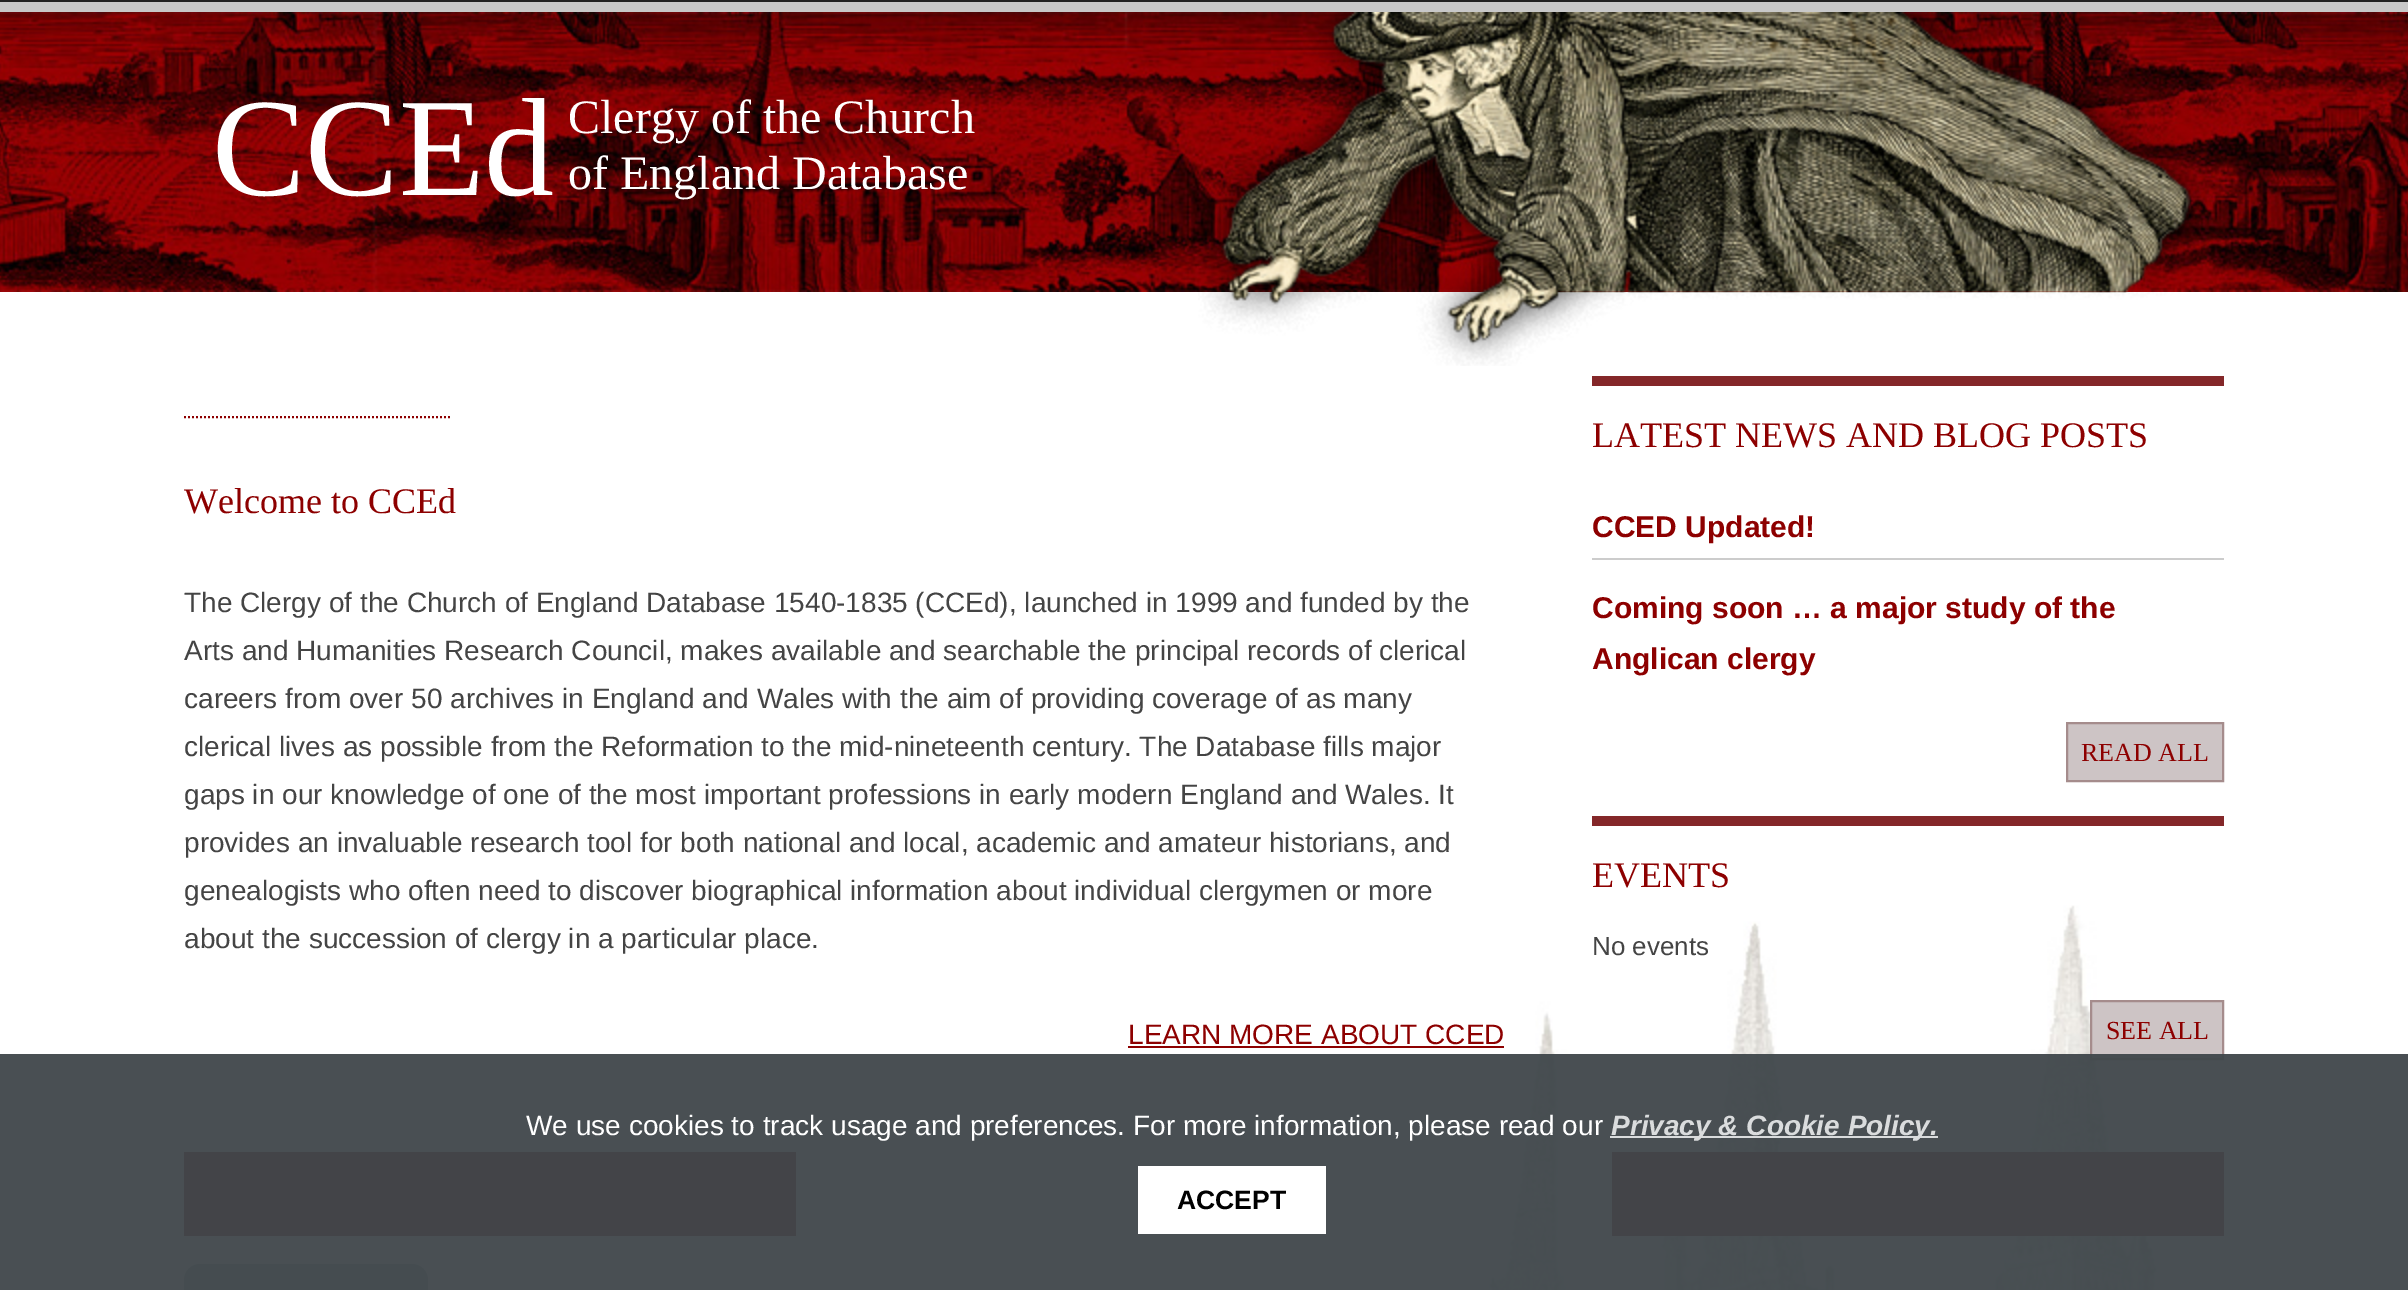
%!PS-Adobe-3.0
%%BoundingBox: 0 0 2408 1290
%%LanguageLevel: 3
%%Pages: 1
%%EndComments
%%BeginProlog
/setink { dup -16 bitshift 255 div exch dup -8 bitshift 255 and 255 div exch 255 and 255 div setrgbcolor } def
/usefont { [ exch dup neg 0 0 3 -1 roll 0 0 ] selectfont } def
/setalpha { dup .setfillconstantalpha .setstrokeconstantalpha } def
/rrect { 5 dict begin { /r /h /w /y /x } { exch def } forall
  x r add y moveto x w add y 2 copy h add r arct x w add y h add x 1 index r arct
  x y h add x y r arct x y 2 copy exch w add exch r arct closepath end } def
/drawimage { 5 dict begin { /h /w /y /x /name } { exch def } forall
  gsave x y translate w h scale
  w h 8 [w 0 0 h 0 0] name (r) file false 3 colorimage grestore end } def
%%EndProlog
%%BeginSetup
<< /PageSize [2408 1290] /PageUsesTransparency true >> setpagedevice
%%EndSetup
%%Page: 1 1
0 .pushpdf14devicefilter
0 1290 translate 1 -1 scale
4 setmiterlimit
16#FFFFFF setink
0 0 2408 1290 rectfill
gsave 0 0 moveto 2408 0 lineto 2408 2 lineto 0 2 lineto closepath clip newpath
<< /ShadingType 2 /ColorSpace /DeviceRGB /Coords [1204 -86 1204 2] /Extend [true true] /Function << /FunctionType 2 /Domain [0 1] /C0 [0.4 0.4 0.4] /C1 [0.133 0.133 0.133] /N 1 >> >> shfill grestore
16#C8C8C8 setink
0 2 2408 10 rectfill
(img1.raw) 0 12 2408 280 drawimage
(img2.raw) 1198 12 1017 354 drawimage
/LiberationSerif-Regular 140 usefont
16#FFFFFF setink
212 195 moveto (CCEd) show
/LiberationSerif-Regular 48 usefont
568 133 moveto (Clergy of the Church) show
568 189 moveto (of England Database) show
(img3.raw) 1488 905 669 385 drawimage
16#8D0000 setink
2 setlinewidth
[2 2] 0 setdash
184 417 moveto 452 417 lineto stroke
/LiberationSerif-Regular 36 usefont
184 513 moveto (Welcome to CCEd) show
/LiberationSans-Regular 28 usefont
16#444444 setink
[
    [(The Clergy of the Church of England Database 1540-1835 \(CCEd\), launched in 1999 and funded by the) 184 612]
    [(Arts and Humanities Research Council, makes available and searchable the principal records of clerical) 184 660]
    [(careers from over 50 archives in England and Wales with the aim of providing coverage of as many) 184 708]
    [(clerical lives as possible from the Reformation to the mid-nineteenth century. The Database fills major) 184 756]
    [(gaps in our knowledge of one of the most important professions in early modern England and Wales. It) 184 804]
    [(provides an invaluable research tool for both national and local, academic and amateur historians, and) 184 852]
    [(genealogists who often need to discover biographical information about individual clergymen or more) 184 900]
    [(about the succession of clergy in a particular place.) 184 948]
] { aload pop moveto show } forall
16#8D0000 setink
1128 1044 moveto (LEARN MORE ABOUT CCED) show
1128 1046 376 2 rectfill
16#842729 setink
1592 376 632 10 rectfill
/LiberationSerif-Regular 36 usefont
16#8D0000 setink
1592 447 moveto (LATEST NEWS AND BLOG POSTS) show
16#CCCCCC setink
1592 558 632 2 rectfill
/LiberationSans-Bold 30 usefont
16#8D0000 setink
[
    [(CCED Updated!) 1592 537]
    [(Coming soon … a major study of the) 1592 618]
    [(Anglican clergy) 1592 669]
] { aload pop moveto show } forall
16#CDC4C5 setink
2067 723 moveto 2223 723 lineto 2223 781 lineto 2067 781 lineto closepath gsave fill grestore
16#A58C8C setink
[] 0 setdash
stroke
/LiberationSerif-Regular 26 usefont
16#8D0000 setink
2081 761 moveto (READ ALL) show
16#842729 setink
1592 816 632 10 rectfill
/LiberationSerif-Regular 36 usefont
16#8D0000 setink
1592 887 moveto (EVENTS) show
/LiberationSans-Regular 26 usefont
16#444444 setink
1592 955 moveto (No events) show
16#CDC4C5 setink
2091 1001 moveto 2223 1001 lineto 2223 1059 lineto 2091 1059 lineto closepath gsave fill grestore
16#A58C8C setink
stroke
/LiberationSerif-Regular 26 usefont
16#8D0000 setink
2106 1039 moveto (SEE ALL) show
16#842729 setink
184 1152 612 84 rectfill
16#BABABA setink
184 1264 244 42 16 rrect fill
16#842729 setink
1612 1152 612 84 rectfill
0.95 setalpha
16#3F464A setink
0 1054 2408 236 rectfill
/LiberationSans-Regular 28 usefont
1 setalpha
16#FFFFFF setink
526 1135 moveto (We use cookies to track usage and preferences. For more information, please read our) show
16#DADCDD setink
1610 1136 328 2 rectfill
/LiberationSans-BoldItalic 28 usefont
1611 1135 moveto (Privacy & Cookie Policy.) show
16#FFFFFF setink
1138 1166 188 68 rectfill
/LiberationSans-Bold 26.5 usefont
16#000000 setink
1177 1209 moveto (ACCEPT) show
.poppdf14devicefilter showpage
%%EOF
